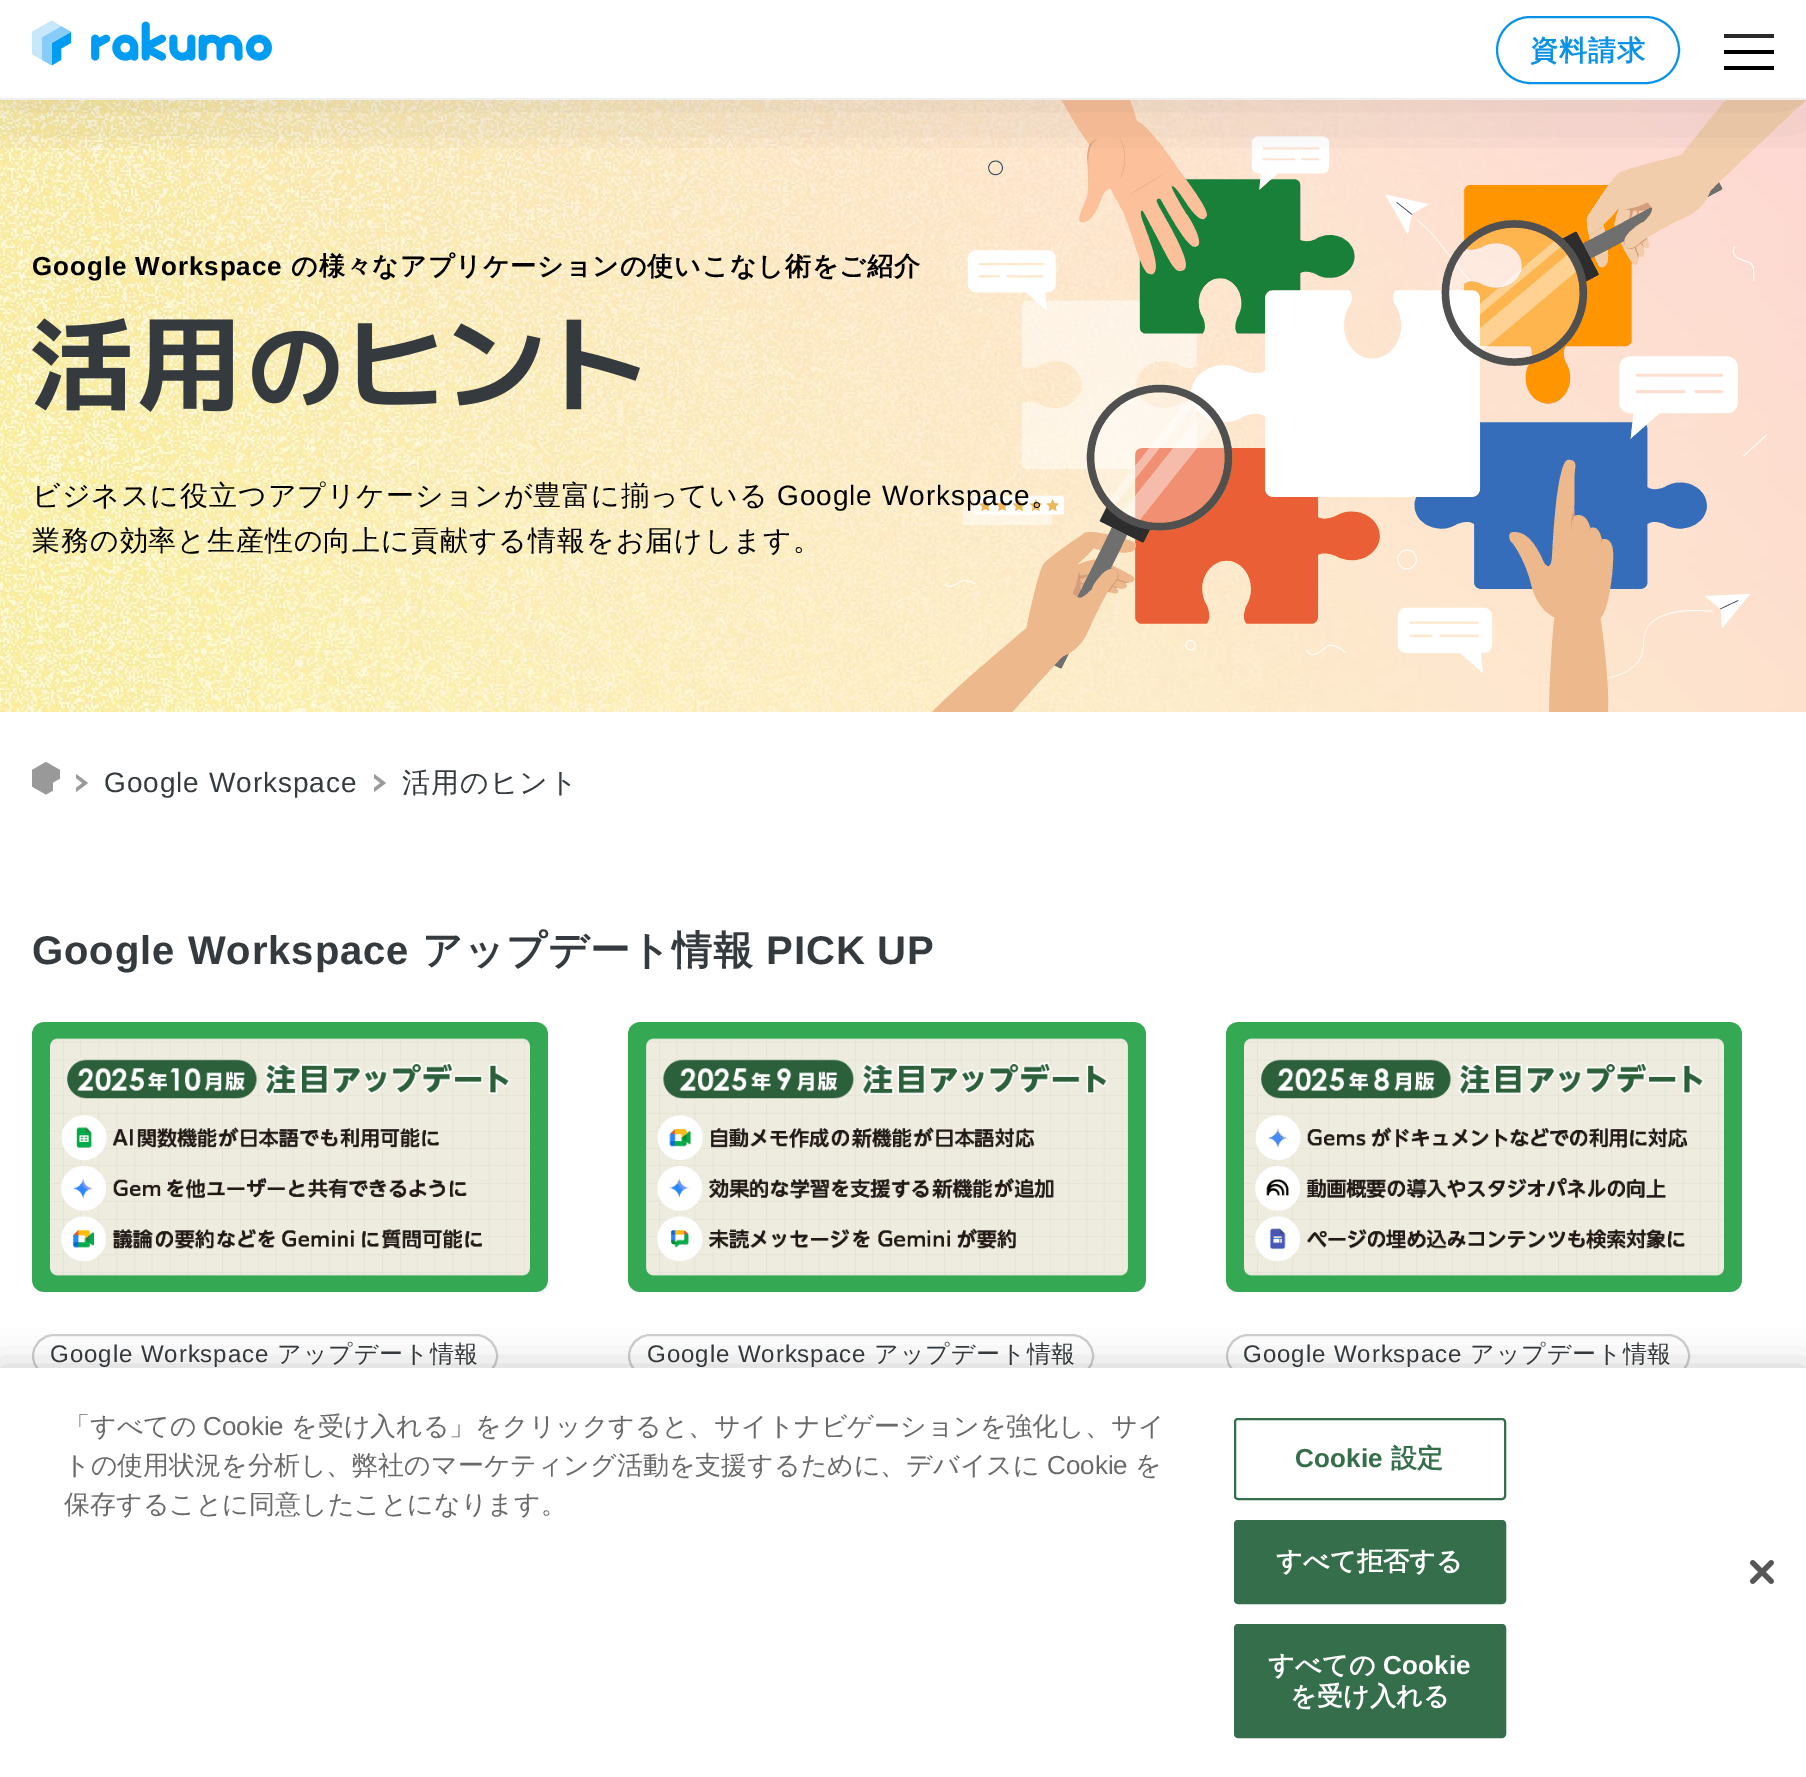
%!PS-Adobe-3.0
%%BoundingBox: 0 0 1806 1777
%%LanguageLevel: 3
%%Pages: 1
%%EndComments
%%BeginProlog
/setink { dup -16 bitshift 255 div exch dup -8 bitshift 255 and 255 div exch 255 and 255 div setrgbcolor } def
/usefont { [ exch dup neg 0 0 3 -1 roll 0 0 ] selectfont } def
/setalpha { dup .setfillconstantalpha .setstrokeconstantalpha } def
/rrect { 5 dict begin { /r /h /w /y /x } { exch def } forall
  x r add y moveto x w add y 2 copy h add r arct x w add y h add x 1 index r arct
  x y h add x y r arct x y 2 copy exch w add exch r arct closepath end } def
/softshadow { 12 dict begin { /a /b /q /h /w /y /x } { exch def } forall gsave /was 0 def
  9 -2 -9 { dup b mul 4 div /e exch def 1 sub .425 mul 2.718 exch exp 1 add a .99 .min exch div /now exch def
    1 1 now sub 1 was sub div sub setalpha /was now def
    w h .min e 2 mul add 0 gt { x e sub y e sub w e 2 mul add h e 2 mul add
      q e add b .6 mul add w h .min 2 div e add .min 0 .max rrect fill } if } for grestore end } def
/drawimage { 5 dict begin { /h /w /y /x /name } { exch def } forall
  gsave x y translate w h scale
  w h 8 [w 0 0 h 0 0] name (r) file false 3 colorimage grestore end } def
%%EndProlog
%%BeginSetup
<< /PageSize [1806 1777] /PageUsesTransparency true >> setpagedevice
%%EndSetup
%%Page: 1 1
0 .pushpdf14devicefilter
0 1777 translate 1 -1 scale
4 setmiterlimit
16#FFFFFF setink
0 0 1806 1777 rectfill
(img2.raw) 0 100 1806 612 drawimage
(img3.raw) 932 100 874 612 drawimage
gsave
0 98 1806 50 rectclip
16#000000 setink
0 2 1806 98 0 50 0.12 softshadow
grestore
(img1.raw) 32 20 240 46 drawimage
16#0A93E6 setink
2 setlinewidth
1497 17 182 66 33 rrect stroke
/WenQuanYiZenHei-Bold 28 usefont
1530 60 moveto 0.95 0 (資料請求) ashow
[
    [1724 34 50 4 16#282828]
    [1724 50 50 4 16#000000]
    [1724 66 50 4 16#000000]
] { aload pop setink rectfill } forall
/LiberationSans-Bold 26 usefont
32 275 moveto 0.95 0 (Google Workspace) ashow
/WenQuanYiZenHei-Bold 26 usefont
291 275 moveto 0.95 0 (の様々なアプリケーションの使いこなし術をご紹介) ashow
(img4.raw) 32 318 608 94 drawimage
/WenQuanYiZenHei-Medium 28 usefont
32 505 moveto 0.95 0 (ビジネスに役立つアプリケーションが豊富に揃っている) ashow
/LiberationSans-Regular 28 usefont
777 505 moveto 0.95 0 (Google Workspace) ashow
/WenQuanYiZenHei-Medium 28 usefont
1031 505 moveto 0.95 0 (。) ashow
32 550 moveto 0.95 0 (業務の効率と生産性の向上に貢献する情報をお届けします。) ashow
16#999999 setink
46 794.5 moveto 53 790.5 lineto 53 782.5 lineto 60 778.5 lineto 60 770 lineto 46 762 lineto 32 770 lineto 32 786.5 lineto closepath 82.5 783 moveto 76 788 lineto 76 792 lineto 88 783 lineto 76 774 lineto 76 778 lineto closepath fill
/LiberationSans-Regular 28 usefont
16#343A3D setink
104 792 moveto 0.95 0 (Google Workspace) ashow
16#999999 setink
380.5 783 moveto 374 788 lineto 374 792 lineto 386 783 lineto 374 774 lineto 374 778 lineto closepath fill
/WenQuanYiZenHei-Medium 28 usefont
16#343A3D setink
402 792 moveto 0.95 0 (活用のヒント) ashow
/LiberationSans-Bold 40 usefont
32 964 moveto 0.95 0 (Google Workspace) ashow
/WenQuanYiZenHei-Bold 40 usefont
422 964 moveto 0.95 0 (アップデート情報) ashow
/LiberationSans-Bold 40 usefont
766 964 moveto 0.95 0 (PICK UP) ashow
(img5.raw) 32 1022 516 270 drawimage
16#CECECE setink
33 1335 464 42 21 rrect stroke
/LiberationSans-Regular 24 usefont
16#343A3D setink
50 1362 moveto 0.95 0 (Google Workspace) ashow
/WenQuanYiZenHei-Medium 24 usefont
277 1362 moveto 0.95 0 (アップデート情報) ashow
(img6.raw) 628 1022 518 270 drawimage
16#CECECE setink
629 1335 464 42 21 rrect stroke
/LiberationSans-Regular 24 usefont
16#343A3D setink
647 1362 moveto 0.95 0 (Google Workspace) ashow
/WenQuanYiZenHei-Medium 24 usefont
874 1362 moveto 0.95 0 (アップデート情報) ashow
(img7.raw) 1226 1022 516 270 drawimage
16#CECECE setink
1227 1335 462 42 21 rrect stroke
/LiberationSans-Regular 24 usefont
16#343A3D setink
1243 1362 moveto 0.95 0 (Google Workspace) ashow
/WenQuanYiZenHei-Medium 24 usefont
1470 1362 moveto 0.95 0 (アップデート情報) ashow
16#000000 setink
0 1368 1806 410 0 18 0.2 softshadow
16#FFFFFF setink
0 1368 1806 409 rectfill
/WenQuanYiZenHei-Medium 26 usefont
16#696969 setink
64 1435 moveto (「すべての) show
/LiberationSans-Regular 26 usefont
203 1435 moveto (Cookie) show
/WenQuanYiZenHei-Medium 26 usefont
291 1435 moveto (を受け入れる」をクリックすると、サイトナビゲーションを強化し、サイ) show
64 1474 moveto (トの使用状況を分析し、弊社のマーケティング活動を支援するために、デバイスに) show
/LiberationSans-Regular 26 usefont
1047 1474 moveto (Cookie) show
/WenQuanYiZenHei-Medium 26 usefont
1135 1474 moveto (を) show
64 1513 moveto (保存することに同意したことになります。) show
16#346E4A setink
1235 1419 270 80 3 rrect stroke
/LiberationSans-Bold 26 usefont
1295 1467 moveto 0.25 0 (Cookie) ashow
/WenQuanYiZenHei-Bold 26 usefont
1391 1467 moveto 0.25 0 (設定) ashow
1235 1521 270 82 3 rrect gsave fill grestore
stroke
16#FFFFFF setink
1276 1570 moveto 0.25 0 (すべて拒否する) ashow
16#346E4A setink
1235 1625 270 112 3 rrect gsave fill grestore
stroke
16#FFFFFF setink
1268 1674 moveto 0.25 0 (すべての) ashow
/LiberationSans-Bold 26 usefont
1383 1674 moveto 0.25 0 (Cookie) ashow
/WenQuanYiZenHei-Bold 26 usefont
1290 1705 moveto 0.25 0 (を受け入れる) ashow
(img8.raw) 1750 1560 24 24 drawimage
.poppdf14devicefilter showpage
%%EOF
